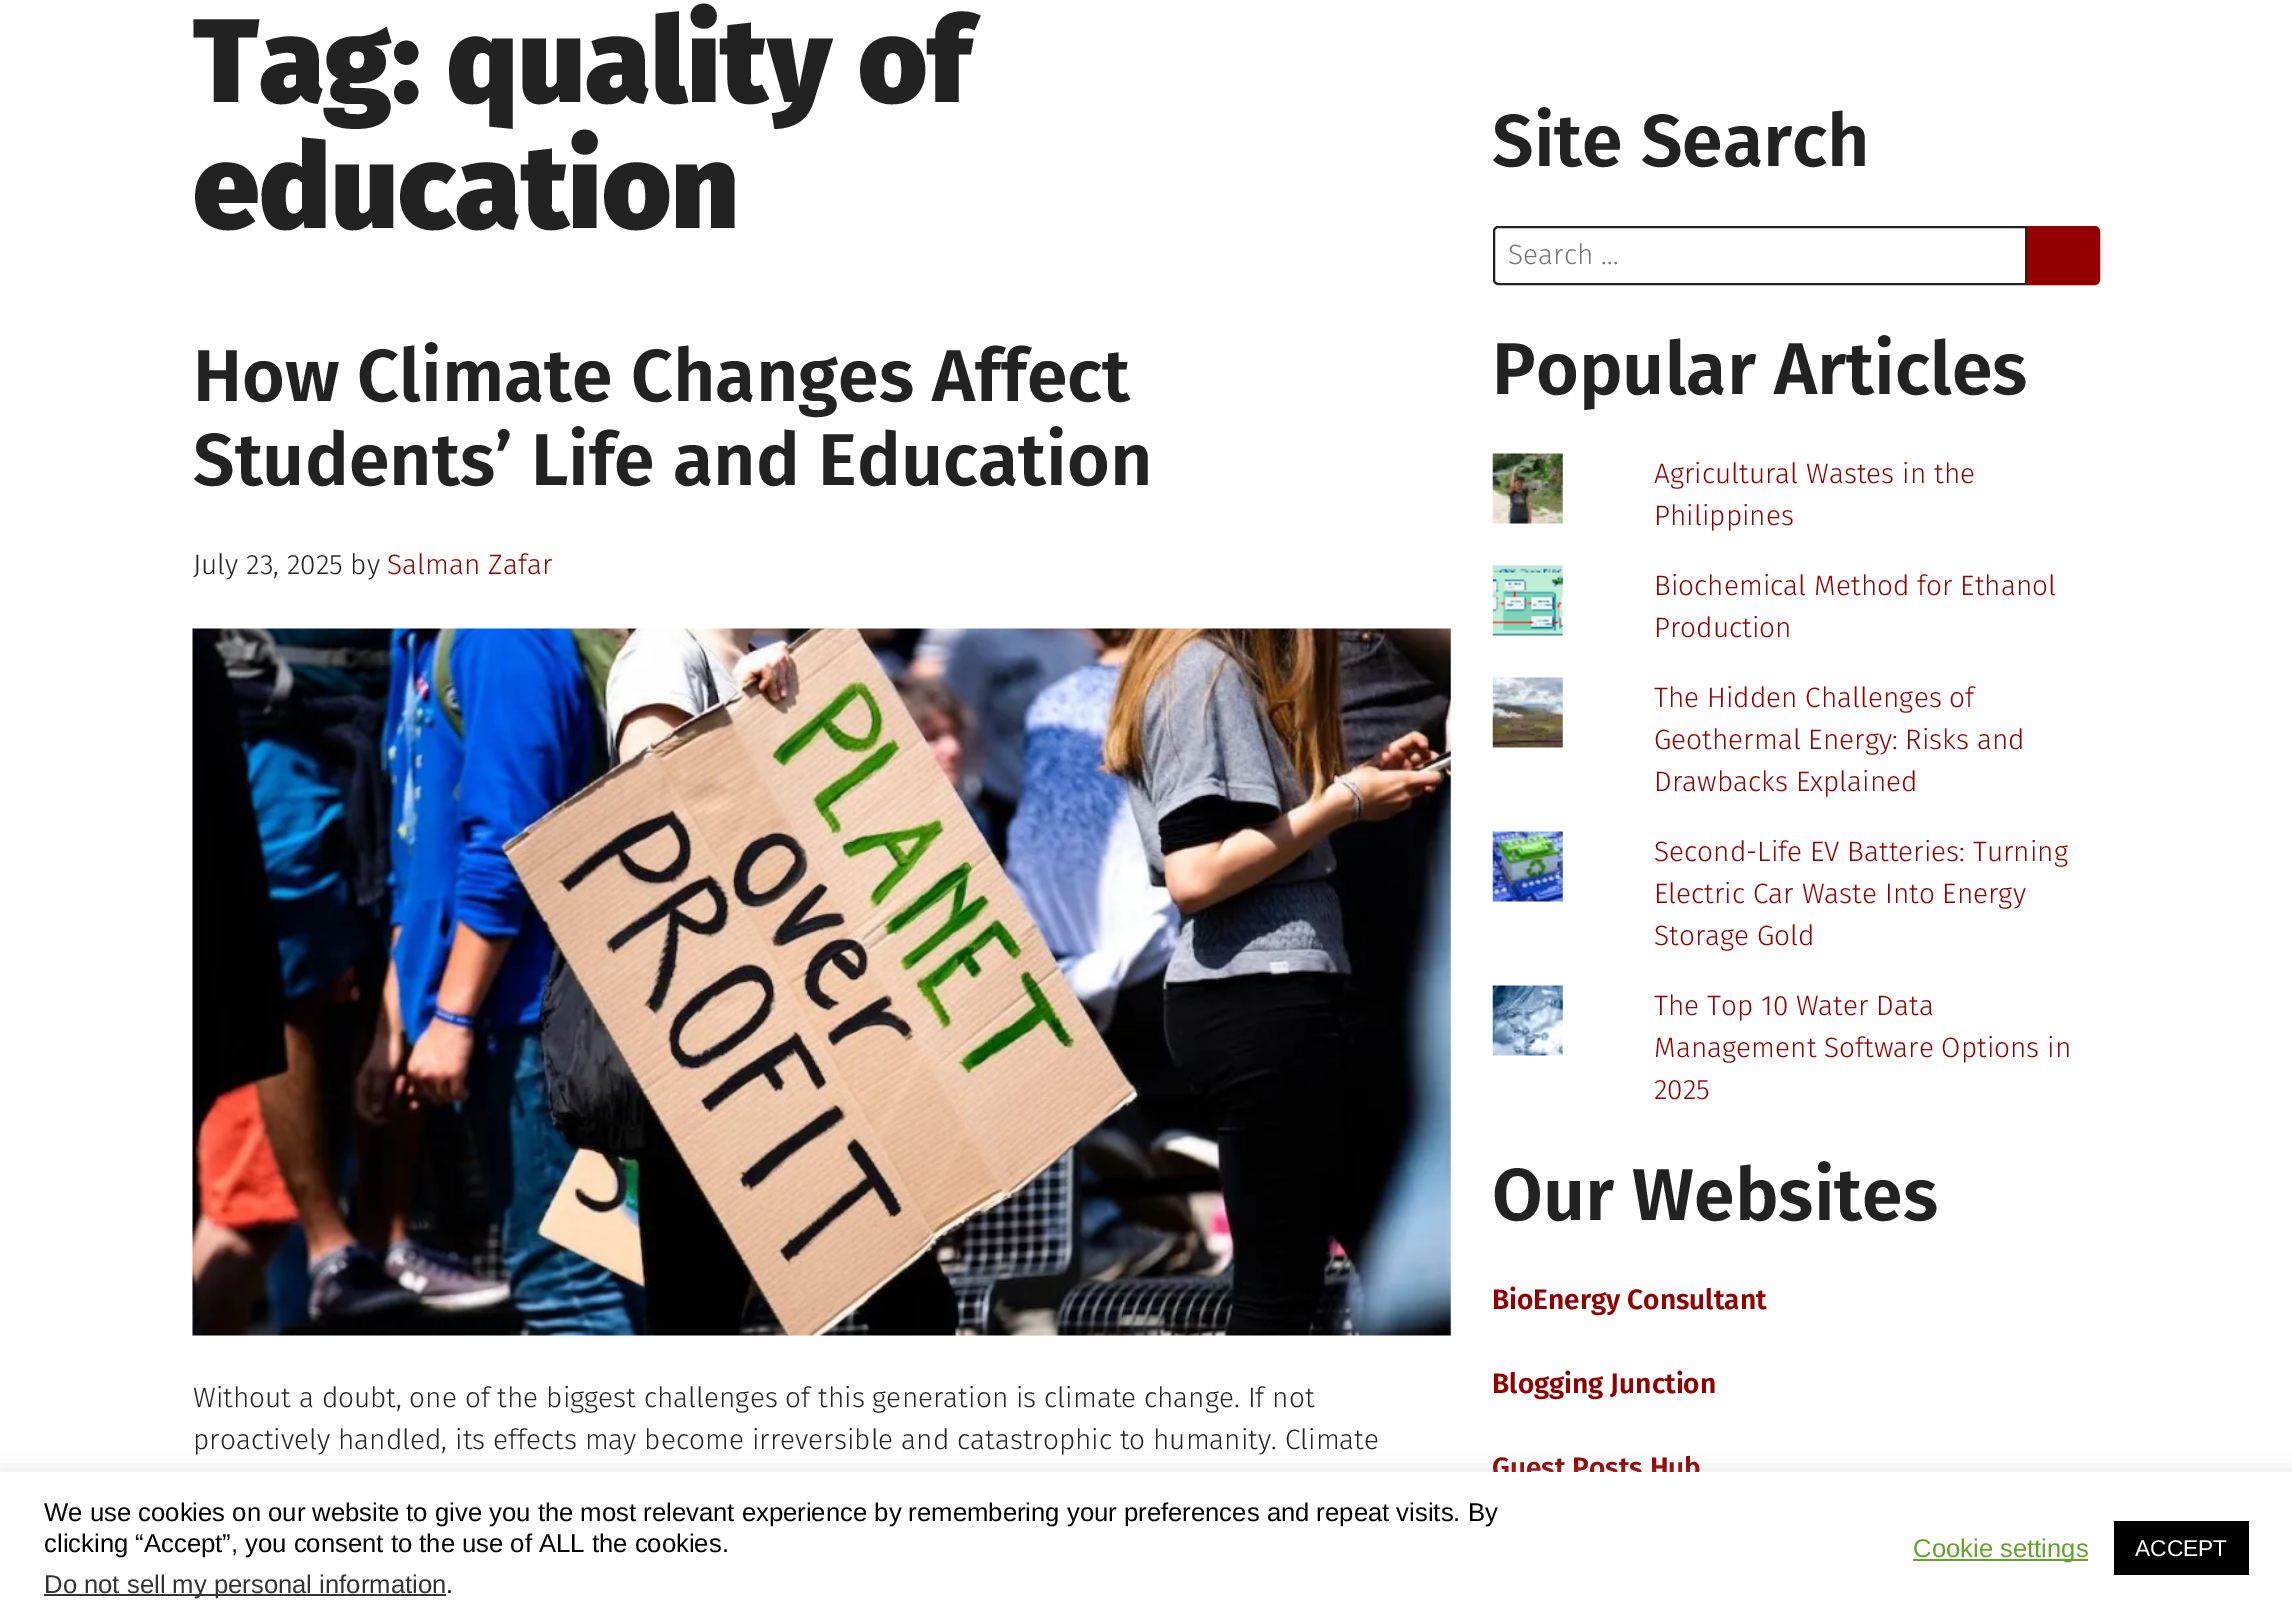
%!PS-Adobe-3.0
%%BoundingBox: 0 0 2292 1624
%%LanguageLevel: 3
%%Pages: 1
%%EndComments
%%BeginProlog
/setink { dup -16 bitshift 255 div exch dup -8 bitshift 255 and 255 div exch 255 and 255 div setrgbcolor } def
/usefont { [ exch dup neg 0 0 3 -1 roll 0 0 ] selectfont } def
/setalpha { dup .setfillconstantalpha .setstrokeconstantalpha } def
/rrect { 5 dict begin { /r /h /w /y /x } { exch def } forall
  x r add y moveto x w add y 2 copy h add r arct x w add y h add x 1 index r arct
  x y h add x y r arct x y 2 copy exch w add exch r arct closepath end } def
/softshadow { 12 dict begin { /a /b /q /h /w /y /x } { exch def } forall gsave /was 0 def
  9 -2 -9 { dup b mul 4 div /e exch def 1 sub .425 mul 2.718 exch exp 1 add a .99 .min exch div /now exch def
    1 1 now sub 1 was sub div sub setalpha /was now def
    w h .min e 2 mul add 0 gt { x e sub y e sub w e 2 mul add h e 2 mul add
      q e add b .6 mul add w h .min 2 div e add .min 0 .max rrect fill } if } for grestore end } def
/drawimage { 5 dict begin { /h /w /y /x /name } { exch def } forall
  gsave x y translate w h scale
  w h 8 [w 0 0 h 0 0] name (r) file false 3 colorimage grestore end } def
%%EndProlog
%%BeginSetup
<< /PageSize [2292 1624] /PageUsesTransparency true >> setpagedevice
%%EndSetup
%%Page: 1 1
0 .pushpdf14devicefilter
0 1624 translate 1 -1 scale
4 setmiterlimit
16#FFFFFF setink
0 0 2292 1624 rectfill
/FiraSans-Black 119 usefont
16#222222 setink
193 102 moveto (Tag: quality of) show
193 228 moveto (education) show
/FiraSans-SemiBold 73.5 usefont
193 401 moveto (How Climate Changes Affect) show
193 485 moveto (Students’ Life and Education) show
/FiraSans-Light 28 usefont
193 574 moveto (July 23, 2025 by) show
16#940000 setink
387 574 moveto (Salman Zafar) show
(img1.raw) 192 628 1259 708 drawimage
16#222222 setink
193 1407 moveto (Without a doubt, one of the biggest challenges of this generation is climate change. If not) show
193 1449 moveto (proactively handled, its effects may become irreversible and catastrophic to humanity. Climate) show
/FiraSans-SemiBold 73.5 usefont
1492 166 moveto (Site Search) show
2 setlinewidth
1498 227 moveto 2026 227 lineto 2026 284 lineto 1498 284 lineto 1496 284 1494 282 1494 280 curveto 1494 231 lineto 1494 229 1496 227 1498 227 curveto closepath stroke
/FiraSans-Light 28 usefont
16#757575 setink
1508 264 moveto (Search …) show
16#940000 setink
2028 227 moveto 2095 227 lineto 2097 227 2099 229 2099 231 curveto 2099 280 lineto 2099 282 2097 284 2095 284 curveto 2028 284 lineto closepath gsave fill grestore
stroke
/FiraSans-SemiBold 73.5 usefont
16#222222 setink
1492 394 moveto (Popular Articles) show
(img2.raw) 1492 453 71 71 drawimage
/FiraSans-Light 28 usefont
16#940000 setink
1654 483 moveto (Agricultural Wastes in the) show
1654 525 moveto (Philippines) show
(img3.raw) 1492 565 71 71 drawimage
1654 595 moveto (Biochemical Method for Ethanol) show
1654 637 moveto (Production) show
(img4.raw) 1492 677 71 71 drawimage
[
    [(The Hidden Challenges of) 1654 707]
    [(Geothermal Energy: Risks and) 1654 749]
    [(Drawbacks Explained) 1654 791]
] { aload pop moveto show } forall
(img5.raw) 1492 831 71 71 drawimage
[
    [(Second-Life EV Batteries: Turning) 1654 861]
    [(Electric Car Waste Into Energy) 1654 903]
    [(Storage Gold) 1654 945]
] { aload pop moveto show } forall
(img6.raw) 1492 985 71 71 drawimage
[
    [(The Top 10 Water Data) 1654 1015]
    [(Management Software Options in) 1654 1057]
    [(2025) 1654 1099]
] { aload pop moveto show } forall
/FiraSans-SemiBold 73.5 usefont
16#222222 setink
1492 1220 moveto (Our Websites) show
/FiraSans-SemiBold 28 usefont
16#940000 setink
[
    [(BioEnergy Consultant) 1492 1309]
    [(Blogging Junction) 1492 1393]
    [(Guest Posts Hub) 1492 1477]
] { aload pop moveto show } forall
16#ACABAB setink
0 1470 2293 152 0 9 0.3 softshadow
16#FFFFFF setink
0 1472 2292 152 rectfill
/LiberationSans-Regular 25.67 usefont
16#000000 setink
44 1521 moveto (We use cookies on our website to give you the most relevant experience by remembering your preferences and repeat visits. By) show
44 1552 moveto (clicking “Accept”, you consent to the use of ALL the cookies.) show
16#333333 setink
44 1594 402 2 rectfill
44 1593 moveto (Do not sell my personal information) show
16#000000 setink
446 1593 moveto (.) show
16#62A329 setink
1913 1559 175 2 rectfill
1913 1557 moveto (Cookie settings) show
16#000000 setink
2114 1521 135 54 rectfill
/LiberationSans-Regular 22.75 usefont
16#FFFFFF setink
2135 1556 moveto (ACCEPT) show
.poppdf14devicefilter showpage
%%EOF
